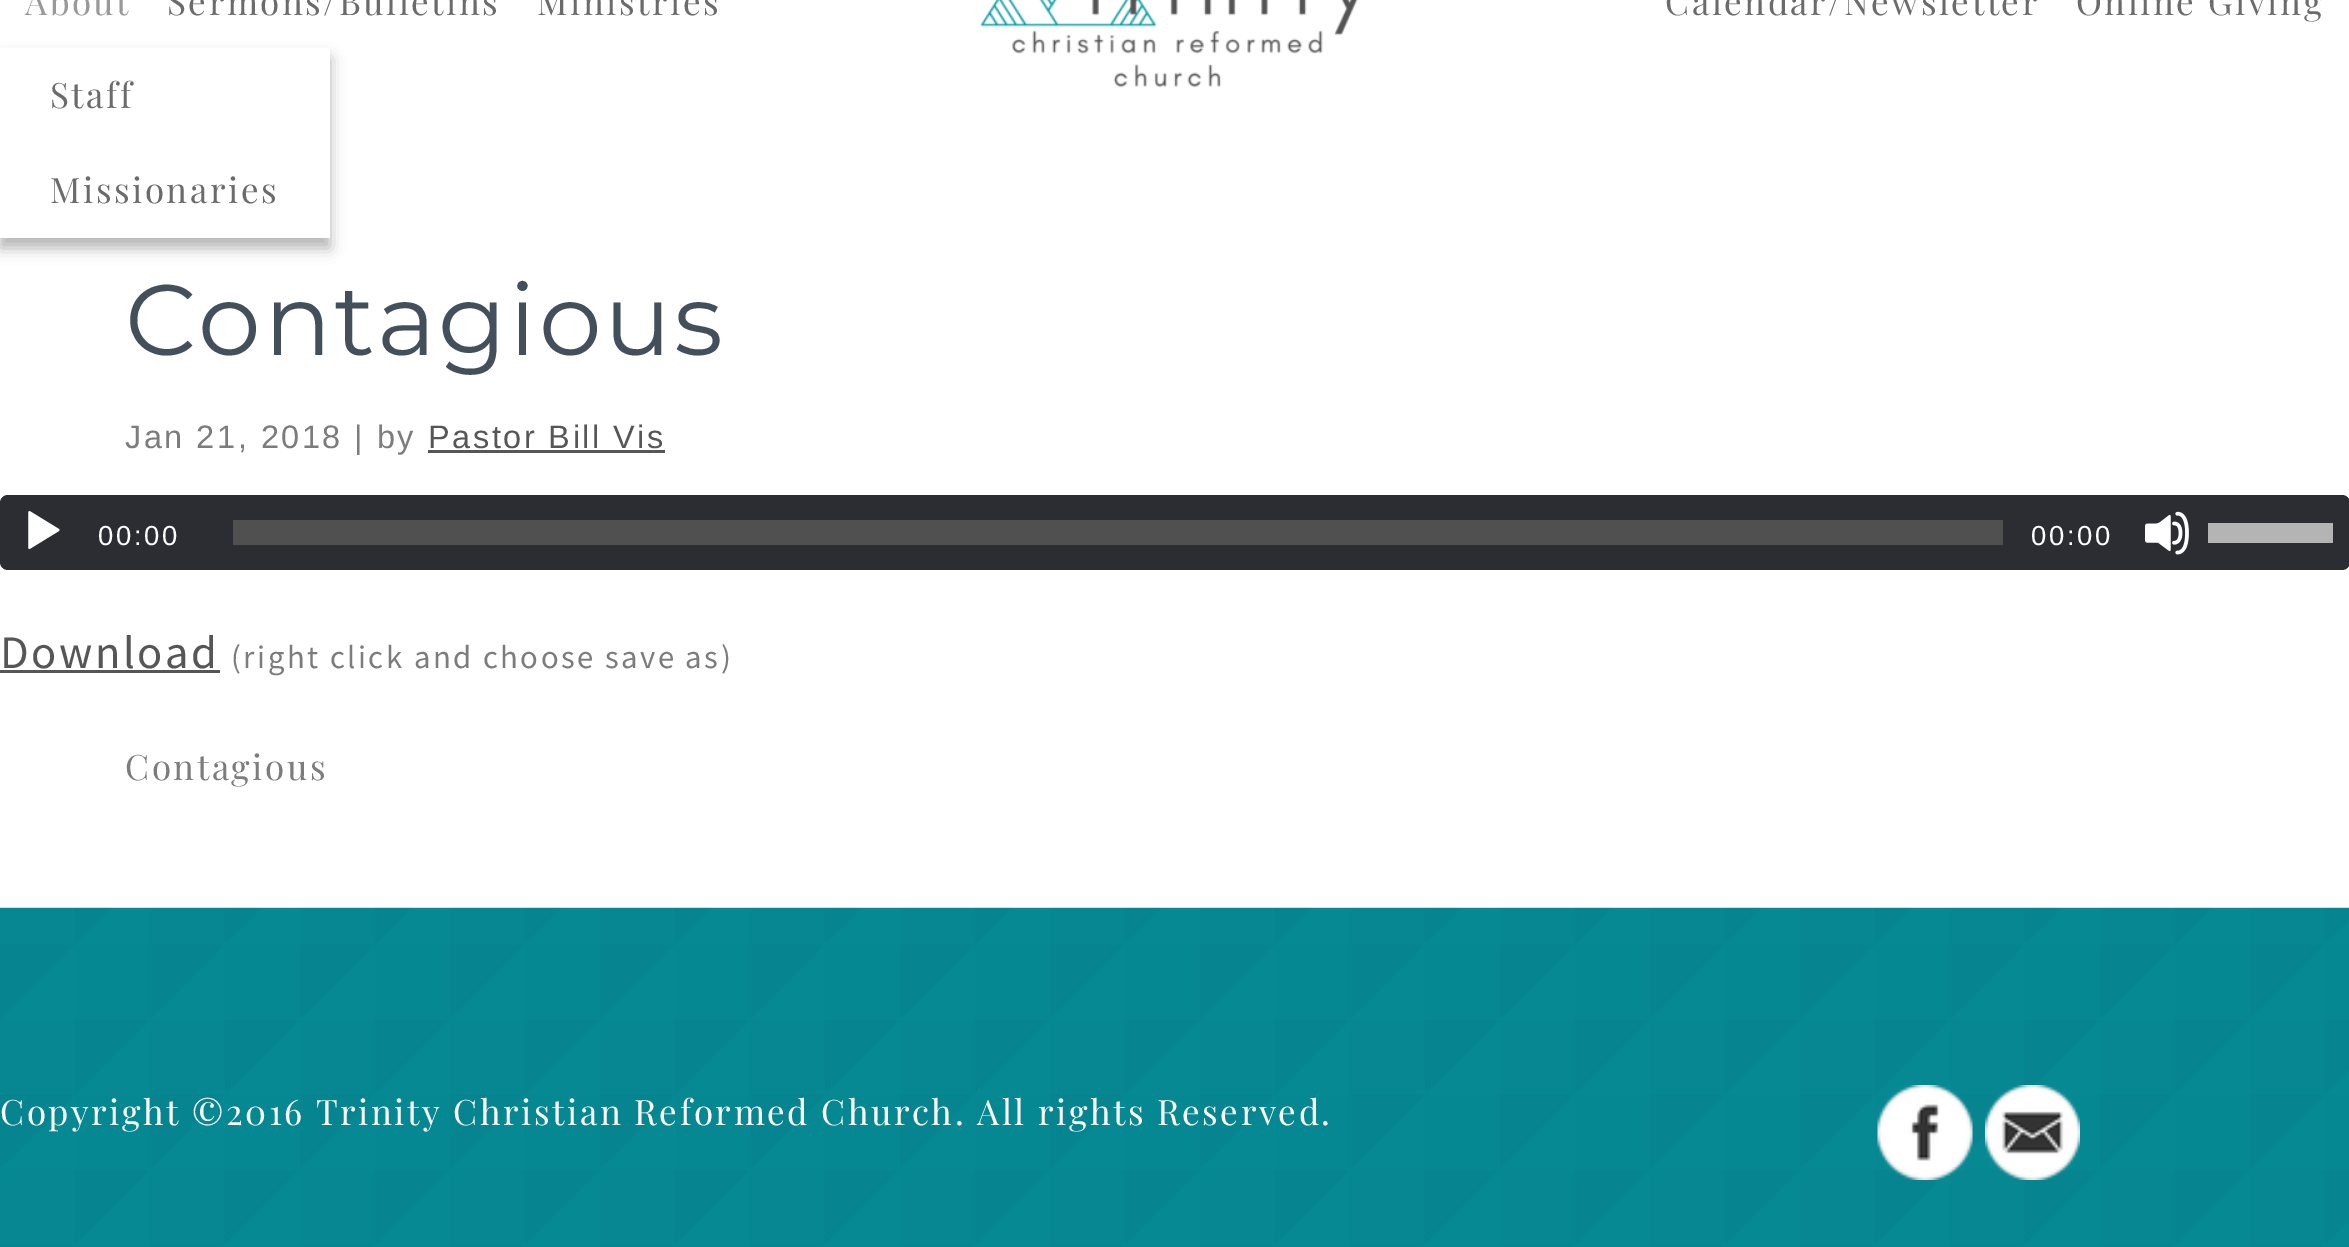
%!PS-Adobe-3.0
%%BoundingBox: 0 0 2349 1247
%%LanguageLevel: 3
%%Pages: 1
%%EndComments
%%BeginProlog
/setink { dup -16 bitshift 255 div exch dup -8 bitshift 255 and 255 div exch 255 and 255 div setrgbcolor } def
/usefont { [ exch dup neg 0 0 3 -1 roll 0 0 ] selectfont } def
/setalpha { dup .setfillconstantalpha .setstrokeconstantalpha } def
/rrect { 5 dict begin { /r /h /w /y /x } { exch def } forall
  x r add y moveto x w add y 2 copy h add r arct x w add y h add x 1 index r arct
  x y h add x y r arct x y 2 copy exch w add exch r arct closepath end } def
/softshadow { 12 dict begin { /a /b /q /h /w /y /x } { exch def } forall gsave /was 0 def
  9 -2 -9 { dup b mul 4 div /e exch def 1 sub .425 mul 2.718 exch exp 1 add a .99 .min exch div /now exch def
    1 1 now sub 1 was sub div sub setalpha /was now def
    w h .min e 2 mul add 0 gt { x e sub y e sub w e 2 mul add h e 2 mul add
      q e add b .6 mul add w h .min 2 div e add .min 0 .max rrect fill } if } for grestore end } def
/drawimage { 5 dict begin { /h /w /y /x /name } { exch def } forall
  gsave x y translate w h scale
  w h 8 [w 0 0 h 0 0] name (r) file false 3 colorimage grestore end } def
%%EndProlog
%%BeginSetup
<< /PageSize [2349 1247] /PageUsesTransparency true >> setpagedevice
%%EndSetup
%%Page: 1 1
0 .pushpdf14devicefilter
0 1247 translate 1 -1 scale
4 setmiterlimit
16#FFFFFF setink
0 0 2349 1247 rectfill
/PlayfairDisplay-Regular 35 usefont
16#999999 setink
25 15 moveto 2.5 0 (About) ashow
gsave
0 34 moveto 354 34 lineto 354 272 lineto 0 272 lineto closepath 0 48 moveto 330 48 lineto 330 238 lineto 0 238 lineto closepath eoclip newpath
16#000000 setink
0 58 330 190 0 7.5 0.3 softshadow
grestore
0.97 setalpha
16#FFFFFF setink
0 237 330 1 rectfill
1 setalpha
16#6B6B6B setink
50 108 moveto 2.5 0 (Staff) ashow
50 203 moveto 2.5 0 (Missionaries) ashow
167 15 moveto 2.5 0 (Sermons/Bulletins) ashow
537 15 moveto 2.5 0 (Ministries) ashow
(img1.raw) 980 0 378 88 drawimage
1665 15 moveto 2.5 0 (Calendar/Newsletter) ashow
2076 15 moveto 2.5 0 (Online Giving) ashow
/Montserrat-Regular 100 usefont
16#434F5B setink
125 355 moveto 2.5 0 (Contagious) ashow
/LiberationSans-Regular 32.5 usefont
16#7C7C7C setink
125 448 moveto 2.5 0 (Jan 21, 2018 | by) ashow
16#575657 setink
428 448 moveto 2.5 0 (Pastor Bill Vis) ashow
428 450 237 3 rectfill
16#2C2D33 setink
0 495 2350 75 8 rrect fill
(img2.raw) 28 511 32 39 drawimage
/LiberationSans-Regular 27.5 usefont
16#FFFFFF setink
98 545 moveto 2.5 0 (00:00) ashow
16#505050 setink
233 520 1770 25 rectfill
16#FFFFFF setink
2031 545 moveto 2.5 0 (00:00) ashow
(img3.raw) 2145 511 44 44 drawimage
16#B4B4B4 setink
2208 523 125 20 rectfill
/SourceSansPro-Regular 46.5 usefont
16#575657 setink
0 668 moveto 2.5 0 (Download) ashow
/SourceSansPro-Regular 32.7 usefont
16#7C7C7C setink
231 668 moveto 2.5 0 (\(right click and choose save as\)) ashow
16#575657 setink
0 670 220 3 rectfill
/PlayfairDisplay-Regular 35 usefont
16#7C7C7C setink
125 780 moveto 2.5 0 (Contagious) ashow
16#08BCC2 setink
0 908 2349 339 rectfill
(img4.raw) 0 907 2349 340 drawimage
16#FFFFFF setink
0 1125 moveto 2.5 0 (Copyright ©2016 Trinity Christian Reformed Church. All rights Reserved.) ashow
(img5.raw) 1877 1085 96 95 drawimage
(img6.raw) 1985 1085 95 95 drawimage
.poppdf14devicefilter showpage
%%EOF
